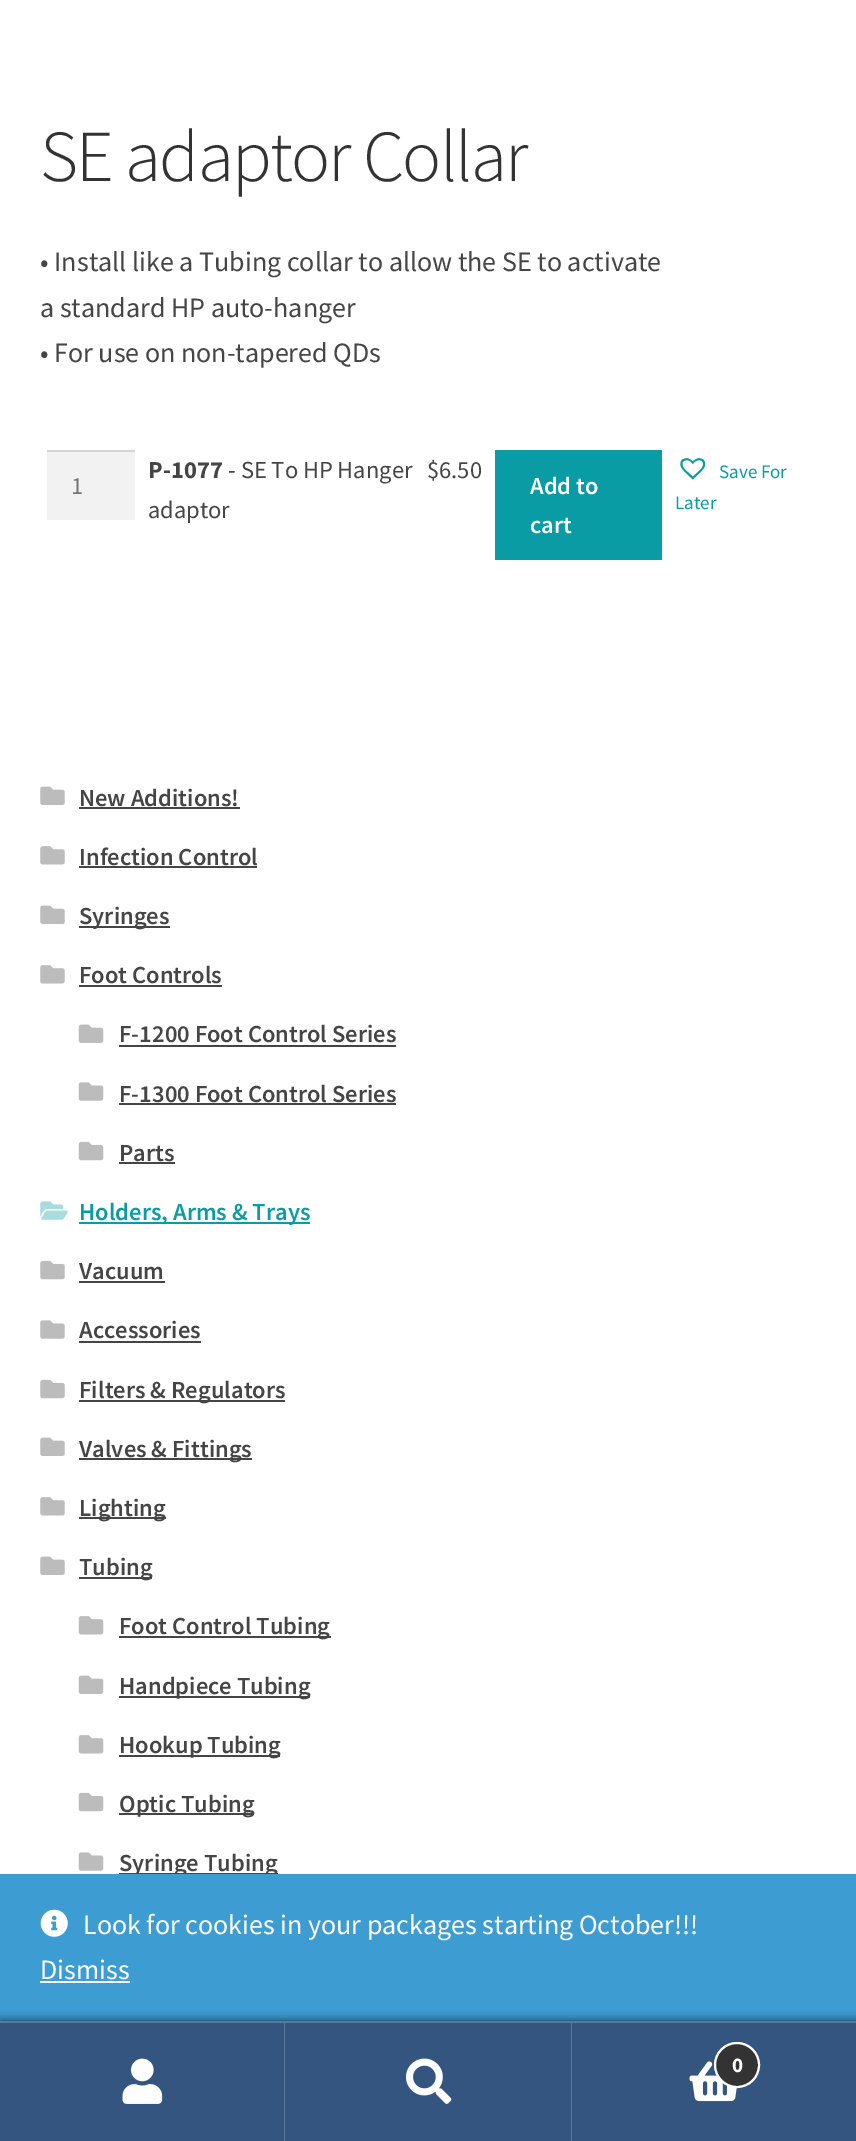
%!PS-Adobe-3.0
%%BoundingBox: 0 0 856 2141
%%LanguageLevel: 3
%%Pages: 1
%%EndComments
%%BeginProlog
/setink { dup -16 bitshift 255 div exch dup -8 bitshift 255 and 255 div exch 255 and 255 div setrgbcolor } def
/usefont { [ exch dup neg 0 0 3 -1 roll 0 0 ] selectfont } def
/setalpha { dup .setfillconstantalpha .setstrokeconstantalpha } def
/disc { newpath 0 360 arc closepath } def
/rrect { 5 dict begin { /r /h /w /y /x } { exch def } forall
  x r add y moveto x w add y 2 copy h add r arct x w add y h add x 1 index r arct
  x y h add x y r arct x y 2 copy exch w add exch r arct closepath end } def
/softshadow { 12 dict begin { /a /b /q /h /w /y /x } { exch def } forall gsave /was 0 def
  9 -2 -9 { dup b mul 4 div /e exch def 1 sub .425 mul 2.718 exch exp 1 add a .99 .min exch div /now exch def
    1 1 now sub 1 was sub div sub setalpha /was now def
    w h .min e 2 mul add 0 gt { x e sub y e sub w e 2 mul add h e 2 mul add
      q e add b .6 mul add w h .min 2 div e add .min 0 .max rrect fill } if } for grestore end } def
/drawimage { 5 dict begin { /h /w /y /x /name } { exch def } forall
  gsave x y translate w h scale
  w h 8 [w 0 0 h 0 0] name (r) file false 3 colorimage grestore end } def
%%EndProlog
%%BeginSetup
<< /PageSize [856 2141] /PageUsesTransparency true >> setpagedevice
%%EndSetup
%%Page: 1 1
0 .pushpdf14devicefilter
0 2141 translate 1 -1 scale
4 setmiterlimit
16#FFFFFF setink
0 0 856 2141 rectfill
/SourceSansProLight-Light 73.25 usefont
16#333333 setink
40 181 moveto -1.75 0 (SE adaptor Collar) ashow
/SourceSansPro-Regular 28 usefont
16#454545 setink
[
    [(• Install like a Tubing collar to allow the SE to activate) 40 271]
    [(a standard HP auto-hanger) 40 317]
    [(• For use on non-tapered QDs) 40 362]
] { aload pop moveto show } forall
16#F2F2F2 setink
47 452 88 68 rectfill
16#D4D4D4 setink
47 450 88 2 rectfill
/SourceSansPro-Regular 24.5 usefont
16#757575 setink
71 494 moveto (1) show
/SourceSansPro-Bold 24.5 usefont
16#454545 setink
148 478 moveto (P-1077) show
/SourceSansPro-Regular 24.5 usefont
[
    [(- SE To HP Hanger) 228 478]
    [(adaptor) 148 518]
    [($6.50) 427 478]
] { aload pop moveto show } forall
16#099CA4 setink
495 450 167 110 rectfill
/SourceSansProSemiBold-SemiBold 24.5 usefont
16#FFFFFF setink
530 494 moveto (Add to) show
530 533 moveto (cart) show
(img1.raw) 680 458 26 22 drawimage
/SourceSansPro-Regular 19 usefont
16#099CA4 setink
719 478 moveto (Save For) show
675 509 moveto (Later) show
(img2.raw) 40 786 25 19 drawimage
/SourceSansProSemiBold-SemiBold 24.5 usefont
16#454545 setink
79 806 moveto (New Additions!) show
79 807 161 2 rectfill
(img3.raw) 40 846 25 19 drawimage
79 865 moveto (Infection Control) show
79 866 178 2 rectfill
(img2.raw) 40 905 25 19 drawimage
79 926 91 2 rectfill
79 924 moveto (Syringes) show
(img3.raw) 40 965 25 19 drawimage
79 983 moveto (Foot Controls) show
79 985 143 2 rectfill
(img4.raw) 78 1024 26 19 drawimage
119 1042 moveto (F-1200 Foot Control Series) show
119 1045 277 2 rectfill
(img5.raw) 78 1082 26 19 drawimage
119 1102 moveto (F-1300 Foot Control Series) show
119 1103 277 2 rectfill
(img6.raw) 78 1141 26 20 drawimage
119 1161 moveto (Parts) show
119 1162 56 2 rectfill
(img7.raw) 40 1201 28 19 drawimage
16#099CA4 setink
79 1222 231 2 rectfill
79 1220 moveto (Holders, Arms & Trays) show
(img8.raw) 40 1260 25 20 drawimage
16#454545 setink
79 1279 moveto (Vacuum) show
79 1281 86 2 rectfill
(img9.raw) 40 1320 25 19 drawimage
79 1338 moveto (Accessories) show
79 1341 122 2 rectfill
(img8.raw) 40 1379 25 20 drawimage
79 1400 206 2 rectfill
79 1398 moveto (Filters & Regulators) show
(img2.raw) 40 1437 25 19 drawimage
79 1458 173 2 rectfill
79 1457 moveto (Valves & Fittings) show
(img3.raw) 40 1497 25 19 drawimage
79 1517 87 2 rectfill
79 1516 moveto (Lighting) show
(img2.raw) 40 1556 25 19 drawimage
79 1577 73 2 rectfill
79 1575 moveto (Tubing) show
(img10.raw) 78 1616 26 19 drawimage
119 1636 212 2 rectfill
119 1634 moveto (Foot Control Tubing) show
(img4.raw) 78 1675 26 19 drawimage
119 1696 191 2 rectfill
119 1694 moveto (Handpiece Tubing) show
(img10.raw) 78 1735 26 19 drawimage
119 1755 161 2 rectfill
119 1753 moveto (Hookup Tubing) show
(img6.raw) 78 1792 26 20 drawimage
119 1813 135 2 rectfill
119 1812 moveto (Optic Tubing) show
(img5.raw) 78 1852 26 19 drawimage
119 1873 159 1 rectfill
119 1871 moveto (Syringe Tubing) show
16#3D9CD2 setink
0 1874 856 147 rectfill
16#000000 setink
0 2021 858 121 0 5 0.7 softshadow
[
    [0 2021 856 2 16#5C7799]
    [0 2023 856 118 16#33557F]
] { aload pop setink rectfill } forall
0.2 setalpha
[
    [284 2023 1 118 16#FFFFFF]
] { aload pop setink rectfill } forall
1 setalpha
(img11.raw) 122 2058 41 46 drawimage
0.2 setalpha
571 2023 1 118 rectfill
1 setalpha
(img12.raw) 406 2058 46 46 drawimage
(img13.raw) 689 2061 48 41 drawimage
16#333333 setink
737 2065 22 disc gsave fill grestore
16#FFFFFF setink
2 setlinewidth
stroke
/SourceSansPro-Bold 21 usefont
732 2072 moveto (0) show
(img14.raw) 40 1909 28 28 drawimage
/SourceSansPro-Regular 28 usefont
83 1934 moveto (Look for cookies in your packages starting October!!!) show
40 1979 moveto (Dismiss) show
40 1981 90 2 rectfill
.poppdf14devicefilter showpage
%%EOF
